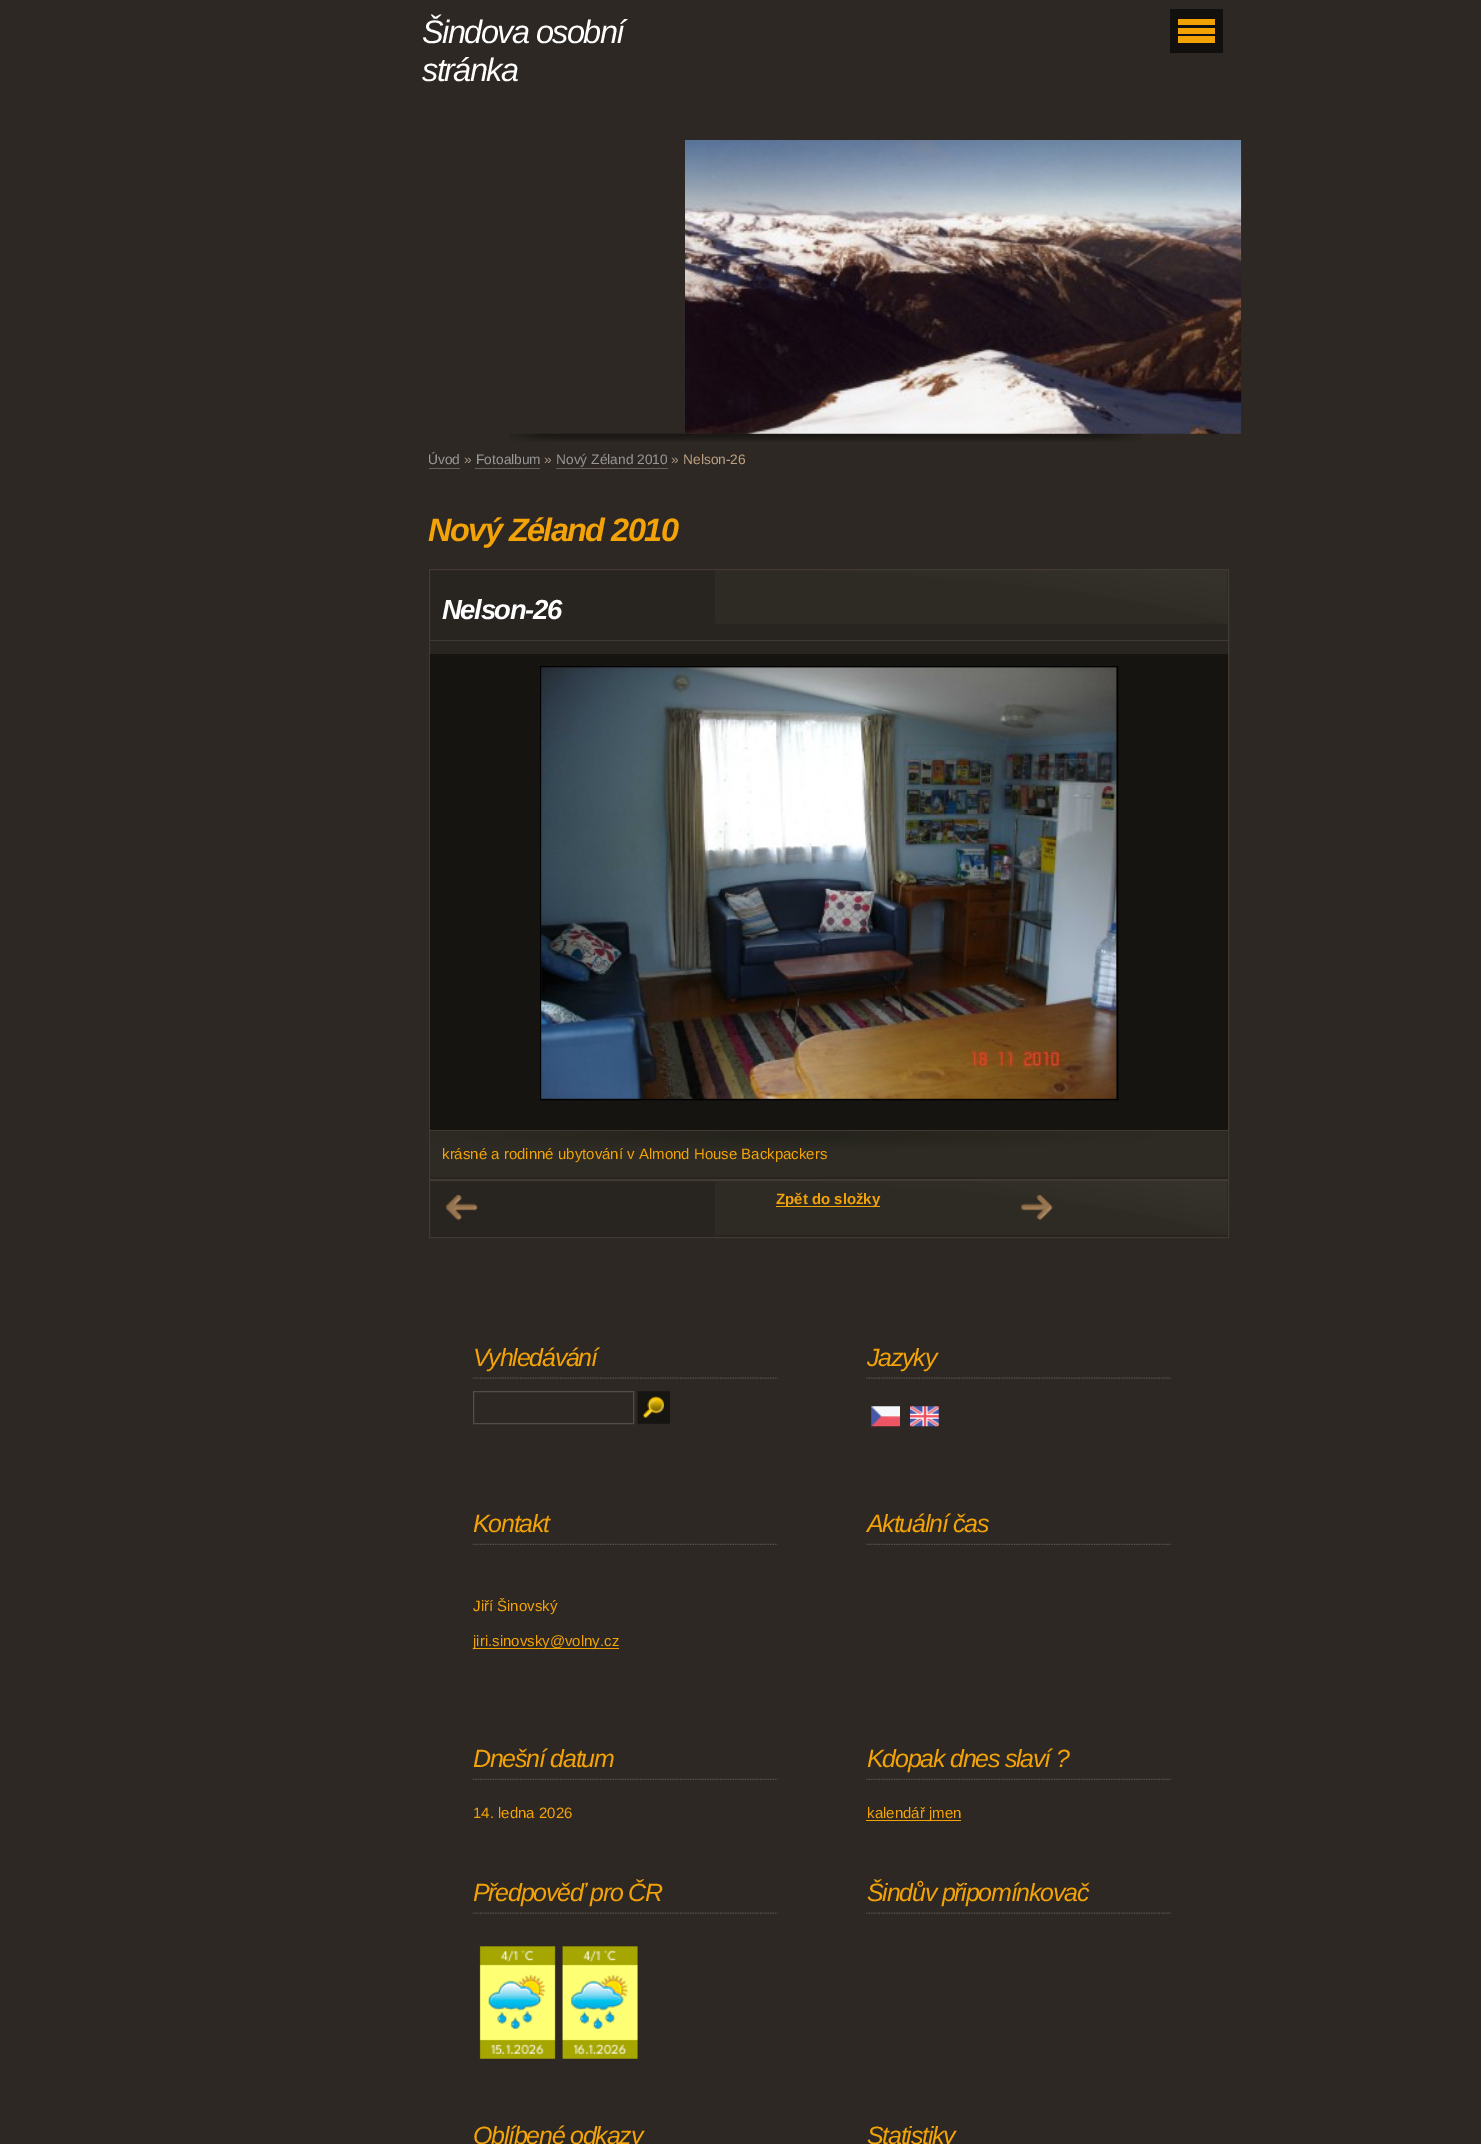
%!PS-Adobe-3.0
%%BoundingBox: 0 0 1481 2144
%%LanguageLevel: 3
%%Pages: 1
%%EndComments
%%BeginProlog
/setink { dup -16 bitshift 255 div exch dup -8 bitshift 255 and 255 div exch 255 and 255 div setrgbcolor } def
/usefont { [ exch dup neg 0 0 3 -1 roll 0 0 ] selectfont } def
/drawimage { 5 dict begin { /h /w /y /x /name } { exch def } forall
  gsave x y translate w h scale
  w h 8 [w 0 0 h 0 0] name (r) file false 3 colorimage grestore end } def
%%EndProlog
%%BeginSetup
<< /PageSize [1481 2144] >> setpagedevice
%%EndSetup
%%Page: 1 1
0 2144 translate 1 -1 scale
4 setmiterlimit
16#2D2823 setink
0 0 1481 2144 rectfill
/LiberationSans-Italic 32.5 usefont
16#FFFFFF setink
422 43 moveto -1.6 0 (Šindova osobní) ashow
422 81 moveto -1.6 0 (stránka) ashow
(img2.raw) 509 433 633 9 drawimage
(img1.raw) 685 140 557 294 drawimage
[
    [1170 9 53 44 16#12100E]
    [1178 19 37 6 16#F3A206]
    [1178 28 37 6 16#F3A206]
    [1178 36 37 7 16#F3A206]
] { aload pop setink rectfill } forall
/LiberationSans-Regular 13.75 usefont
16#999999 setink
428 464 moveto (Úvod) show
16#6B5E5C setink
429 468 31 1 rectfill
16#A99985 setink
464 464 moveto (») show
16#999999 setink
476 464 moveto (Fotoalbum) show
16#6B5E5C setink
475 468 65 1 rectfill
16#A99985 setink
544 464 moveto (») show
16#999999 setink
556 464 moveto (Nový Zéland 2010) show
16#6B5E5C setink
556 468 112 1 rectfill
16#A99985 setink
671 464 moveto (») show
16#BFA283 setink
683 464 moveto (Nelson-26) show
/LiberationSans-BoldItalic 32.5 usefont
16#F3A308 setink
428 541 moveto -1.6 0 (Nový Zéland 2010) ashow
16#28241F setink
430 570 798 609 rectfill
(img3.raw) 715 570 513 54 drawimage
16#413A33 setink
429.5 569.5 799 610 rectstroke
430 640 798 1 rectfill
/LiberationSans-BoldItalic 27.5 usefont
16#FFFFFF setink
442 619 moveto -1.4 0 (Nelson-26) ashow
16#161411 setink
430 654 798 476 rectfill
16#413A33 setink
430 1130 798 1 rectfill
16#000000 setink
540.5 666.5 577 433 rectstroke
(img4.raw) 541 667 576 432 drawimage
(img5.raw) 430 1131 797 46 drawimage
/LiberationSans-Regular 15 usefont
16#F3A308 setink
442 1159 moveto (krásné a rodinné ubytování v Almond House Backpackers) show
16#28241F setink
430 1181 798 56 rectfill
(img6.raw) 715 1181 513 54 drawimage
16#413A33 setink
429.5 1180.5 799 57 rectstroke
(img7.raw) 445 1194 33 27 drawimage
16#F3A308 setink
776 1206 104 1 rectfill
/LiberationSans-Bold 15 usefont
776 1204 moveto (Zpět do složky) show
(img8.raw) 1020 1194 33 27 drawimage
(img9.raw) 472 1377 306 2 drawimage
/LiberationSans-Italic 25 usefont
473 1366 moveto -1.25 0 (Vyhledávání) ashow
16#534D47 setink
473.5 1391.5 160 32 rectstroke
(img10.raw) 637 1391 33 33 drawimage
(img11.raw) 866 1377 306 2 drawimage
16#F3A308 setink
867 1366 moveto -1.25 0 (Jazyky) ashow
(img12.raw) 871 1406 29 21 drawimage
(img13.raw) 910 1406 29 21 drawimage
(img14.raw) 472 1543 306 2 drawimage
473 1532 moveto -1.25 0 (Kontakt) ashow
/LiberationSans-Regular 15 usefont
473 1611 moveto (Jiří Šinovský) show
16#F3A206 setink
473 1648 146 1 rectfill
16#F3A308 setink
473 1646 moveto (jiri.sinovsky@volny.cz) show
(img15.raw) 866 1543 306 2 drawimage
/LiberationSans-Italic 25 usefont
867 1532 moveto -1.25 0 (Aktuální čas) ashow
(img14.raw) 472 1778 306 2 drawimage
473 1767 moveto -1.25 0 (Dnešní datum) ashow
/LiberationSans-Regular 15 usefont
473 1818 moveto (14. ledna 2026) show
(img15.raw) 866 1778 306 2 drawimage
/LiberationSans-Italic 25 usefont
867 1767 moveto -1.25 0 (Kdopak dnes slaví ?) ashow
16#F3A206 setink
866 1820 95 1 rectfill
/LiberationSans-Regular 15 usefont
16#F3A308 setink
867 1818 moveto (kalendář jmen) show
(img9.raw) 472 1912 306 2 drawimage
/LiberationSans-Italic 25 usefont
473 1901 moveto -1.25 0 (Předpověď pro ČR) ashow
(img16.raw) 479 1946 159 113 drawimage
(img11.raw) 866 1912 306 2 drawimage
867 1901 moveto -1.25 0 (Šindův připomínkovač) ashow
473 2144 moveto -1.25 0 (Oblíbené odkazy) ashow
867 2144 moveto -1.25 0 (Statistiky) ashow
showpage
%%EOF
